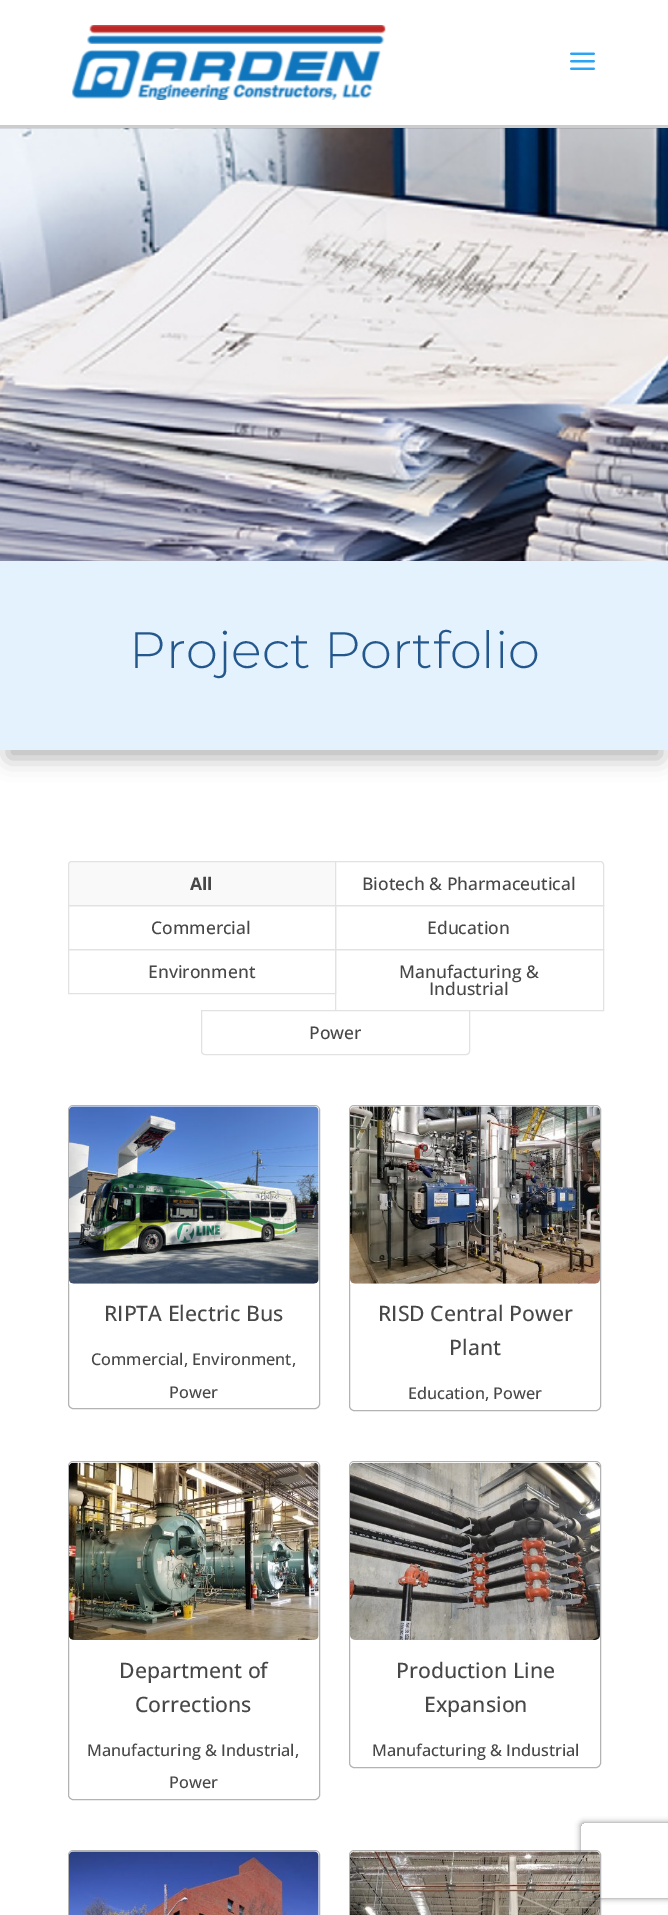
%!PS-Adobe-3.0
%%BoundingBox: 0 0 668 1915
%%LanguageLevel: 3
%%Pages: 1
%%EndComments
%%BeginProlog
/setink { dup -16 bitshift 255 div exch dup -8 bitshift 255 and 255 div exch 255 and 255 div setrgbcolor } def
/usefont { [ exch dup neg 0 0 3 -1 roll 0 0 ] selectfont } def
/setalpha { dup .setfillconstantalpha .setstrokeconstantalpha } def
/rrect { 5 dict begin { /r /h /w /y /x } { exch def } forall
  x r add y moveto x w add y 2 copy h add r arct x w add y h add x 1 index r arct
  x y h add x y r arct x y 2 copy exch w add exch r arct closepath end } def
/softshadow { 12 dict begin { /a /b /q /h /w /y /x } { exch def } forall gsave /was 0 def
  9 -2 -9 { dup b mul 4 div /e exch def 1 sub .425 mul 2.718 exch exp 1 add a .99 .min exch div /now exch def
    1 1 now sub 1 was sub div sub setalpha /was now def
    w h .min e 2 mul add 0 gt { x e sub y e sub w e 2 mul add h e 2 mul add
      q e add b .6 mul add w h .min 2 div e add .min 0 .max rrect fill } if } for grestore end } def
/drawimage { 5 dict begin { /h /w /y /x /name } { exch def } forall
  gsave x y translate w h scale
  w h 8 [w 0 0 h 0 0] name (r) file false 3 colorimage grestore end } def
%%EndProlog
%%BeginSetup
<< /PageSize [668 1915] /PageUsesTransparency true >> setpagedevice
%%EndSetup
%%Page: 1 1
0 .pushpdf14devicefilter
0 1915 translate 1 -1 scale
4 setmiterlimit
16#FFFFFF setink
0 0 668 1915 rectfill
(img3.raw) 0 128 668 433 drawimage
0.1 setalpha
16#000000 setink
0 128 moveto 0 129 lineto 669 129 lineto 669 1 lineto 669 128 lineto closepath fill
1 setalpha
16#CCCCCC setink
0 125 668 3 rectfill
(img1.raw) 72 25 314 75 drawimage
(img2.raw) 570 52 25 18 drawimage
16#000000 setink
8 584 653 174 0 11 0.3 softshadow
16#E3F2FC setink
0 561 668 189 rectfill
/Montserrat-Light 51.25 usefont
16#24588D setink
129 668 moveto (Project Portfolio) show
16#F9F9F9 setink
72 861.5 moveto 335.5 861.5 lineto 335.5 905.5 lineto 68.5 905.5 lineto 68.5 865 lineto 68.5 863 70 861.5 72 861.5 curveto closepath gsave fill grestore
16#E2E2E2 setink
stroke
/OpenSans-Bold 17.5 usefont
16#474747 setink
190 890 moveto (All) show
16#FFFFFF setink
335.5 861.5 moveto 600 861.5 lineto 602 861.5 603.5 863 603.5 865 curveto 603.5 905.5 lineto 335.5 905.5 lineto closepath gsave fill grestore
16#E2E2E2 setink
stroke
/OpenSans-Medium 17.5 usefont
16#474747 setink
362 890 moveto (Biotech & Pharmaceutical) show
16#E2E2E2 setink
68.5 905.5 267 44 rectstroke
16#474747 setink
151 934 moveto (Commercial) show
16#E2E2E2 setink
335.5 905.5 268 44 rectstroke
16#474747 setink
427 934 moveto (Education) show
16#E2E2E2 setink
68.5 949.5 267 44 rectstroke
16#474747 setink
148 978 moveto (Environment) show
16#E2E2E2 setink
335.5 949.5 268 61 rectstroke
16#474747 setink
399 978 moveto (Manufacturing &) show
429 995 moveto (Industrial) show
16#FFFFFF setink
201.5 1010.5 moveto 469.5 1010.5 lineto 469.5 1051 lineto 469.5 1053 468 1054.5 466 1054.5 curveto 205 1054.5 lineto 203 1054.5 201.5 1053 201.5 1051 curveto closepath gsave fill grestore
16#E2E2E2 setink
stroke
16#474747 setink
309 1039 moveto (Power) show
16#B3B3B3 setink
68.5 1105.5 251 303 4.5 rrect stroke
(img4.raw) 69 1106 250 178 drawimage
/OpenSans-Medium 21.25 usefont
16#474747 setink
104 1321 moveto (RIPTA Electric Bus) show
/OpenSans-Medium 16.25 usefont
91 1365 moveto (Commercial, Environment,) show
169 1398 moveto (Power) show
16#B3B3B3 setink
349.5 1105.5 251 305 4.5 rrect stroke
(img5.raw) 350 1106 250 178 drawimage
/OpenSans-Medium 21.25 usefont
16#474747 setink
378 1321 moveto (RISD Central Power) show
449 1355 moveto (Plant) show
/OpenSans-Medium 16.25 usefont
408 1399 moveto (Education, Power) show
16#B3B3B3 setink
68.5 1461.5 251 338 4.5 rrect stroke
(img6.raw) 69 1462 250 178 drawimage
/OpenSans-Medium 21.25 usefont
16#474747 setink
119 1678 moveto (Department of) show
135 1712 moveto (Corrections) show
/OpenSans-Medium 16.25 usefont
87 1756 moveto (Manufacturing & Industrial,) show
169 1788 moveto (Power) show
16#B3B3B3 setink
349.5 1461.5 251 306 4.5 rrect stroke
(img7.raw) 350 1462 250 178 drawimage
/OpenSans-Medium 21.25 usefont
16#474747 setink
396 1678 moveto (Production Line) show
424 1712 moveto (Expansion) show
/OpenSans-Medium 16.25 usefont
372 1756 moveto (Manufacturing & Industrial) show
16#B3B3B3 setink
68.5 1850.5 251 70 4.5 rrect stroke
(img8.raw) 69 1851 250 64 drawimage
349.5 1850.5 251 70 4.5 rrect stroke
(img9.raw) 350 1851 250 64 drawimage
gsave
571 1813 moveto 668 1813 lineto 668 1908 lineto 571 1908 lineto closepath 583.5 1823 moveto 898.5 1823 lineto 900 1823 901 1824 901 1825.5 curveto 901 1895.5 lineto 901 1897 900 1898 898.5 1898 curveto 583.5 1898 lineto 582 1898 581 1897 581 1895.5 curveto 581 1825.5 lineto 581 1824 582 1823 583.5 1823 curveto closepath eoclip newpath
16#808080 setink
581 1823 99 75 2.5 3 1 softshadow
grestore
.poppdf14devicefilter showpage
%%EOF
